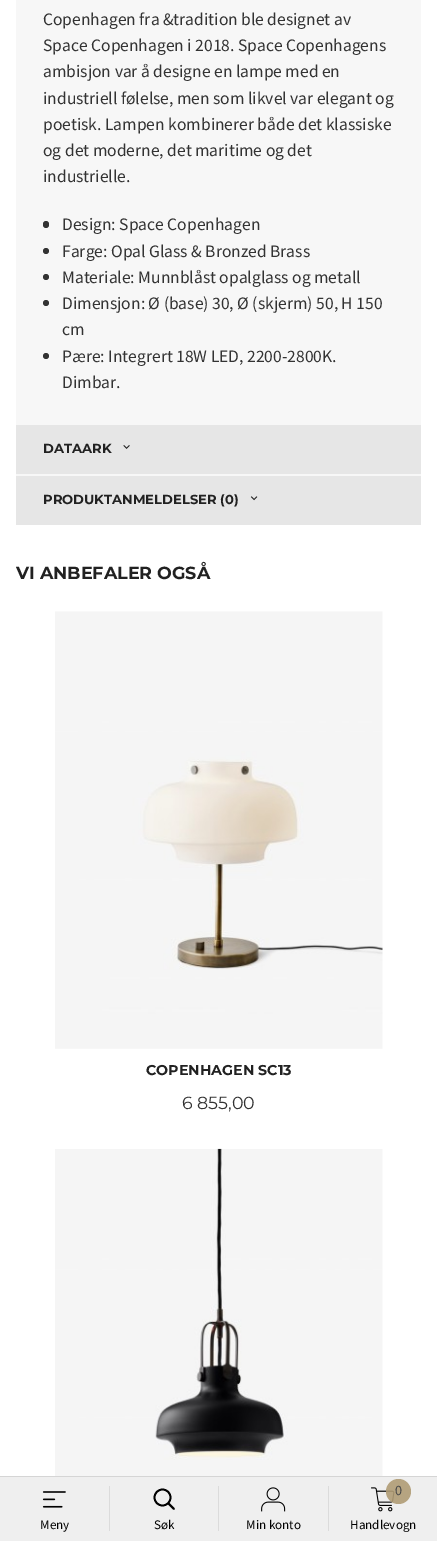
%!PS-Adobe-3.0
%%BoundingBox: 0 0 437 1541
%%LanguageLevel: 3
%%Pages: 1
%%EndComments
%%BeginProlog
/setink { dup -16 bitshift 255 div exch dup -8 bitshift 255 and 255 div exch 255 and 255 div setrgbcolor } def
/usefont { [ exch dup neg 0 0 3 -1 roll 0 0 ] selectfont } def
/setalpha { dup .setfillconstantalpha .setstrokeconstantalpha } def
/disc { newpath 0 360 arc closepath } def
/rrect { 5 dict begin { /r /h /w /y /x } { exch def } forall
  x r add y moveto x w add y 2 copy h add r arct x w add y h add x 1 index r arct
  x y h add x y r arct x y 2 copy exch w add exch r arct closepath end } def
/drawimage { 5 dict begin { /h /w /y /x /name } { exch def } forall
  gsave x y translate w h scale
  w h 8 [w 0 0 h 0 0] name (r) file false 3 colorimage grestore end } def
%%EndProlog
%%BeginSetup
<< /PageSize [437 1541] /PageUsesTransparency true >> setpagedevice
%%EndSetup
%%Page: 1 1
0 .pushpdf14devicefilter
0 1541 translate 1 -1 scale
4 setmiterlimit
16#FFFFFF setink
0 0 437 1541 rectfill
16#F7F7F7 setink
16 0 405 476 rectfill
/SourceSansPro-Regular 17.5 usefont
16#333333 setink
[
    [(Copenhagen fra &tradition ble designet av) 43 25]
    [(Space Copenhagen i 2018. Space Copenhagens) 43 51]
    [(ambisjon var å designe en lampe med en) 43 77]
    [(industriell følelse, men som likvel var elegant og) 43 104]
    [(poetisk. Lampen kombinerer både det klassiske) 43 130]
    [(og det moderne, det maritime og det) 43 156]
    [(industrielle.) 43 182]
] { aload pop moveto show } forall
43 221 6 7 3 rrect fill
62 230 moveto (Design: Space Copenhagen) show
46 251 3 disc fill
62 257 moveto (Farge: Opal Glass & Bronzed Brass) show
46 277 3 disc fill
62 283 moveto (Materiale: Munnblåst opalglass og metall) show
46 303 3 disc fill
62 309 moveto (Dimensjon: Ø \(base\) 30, Ø \(skjerm\) 50, H 150) show
62 335 moveto (cm) show
46 356 3 disc fill
62 362 moveto (Pære: Integrert 18W LED, 2200-2800K.) show
62 388 moveto (Dimbar.) show
16#E6E6E6 setink
16 425 405 49 rectfill
/Montserrat-Bold 13.1 usefont
16#212121 setink
43 453 moveto (DATAARK) show
(img1.raw) 123 445 7 4 drawimage
16#E6E6E6 setink
16 476 405 49 rectfill
16#212121 setink
43 504 moveto (PRODUKTANMELDELSER \(0\)) show
(img2.raw) 250 496 8 5 drawimage
/Montserrat-Bold 17.5 usefont
16 579 moveto (VI ANBEFALER OGSÅ) show
(img3.raw) 55 611 328 438 drawimage
/Montserrat-Bold 14.25 usefont
146 1075 moveto (COPENHAGEN SC13) show
/Montserrat-Regular 17.5 usefont
16#333333 setink
182 1109 moveto (6 855,00) show
(img4.raw) 55 1148 328 328 drawimage
16#EFEFEF setink
0 1477 437 64 rectfill
16#D5D5D5 setink
0 1476 437 1 rectfill
(img5.raw) 42 1491 24 17 drawimage
/SourceSansPro-Regular 13.1 usefont
16#000000 setink
40 1529 moveto (Meny) show
16#DBDBDB setink
109 1486 1 45 rectfill
16#000000 setink
1.8 setlinewidth
162.5 1497.5 8 disc stroke
1 setlinecap
174 1509 moveto 168.5 1503.5 lineto stroke
154 1529 moveto (Søk) show
16#DBDBDB setink
218 1486 1 45 rectfill
(img6.raw) 261 1487 25 25 drawimage
16#000000 setink
246 1529 moveto (Min konto) show
16#DBDBDB setink
328 1486 1 45 rectfill
(img7.raw) 371 1487 24 25 drawimage
0.9 setalpha
16#B09C75 setink
398.5 1491.5 12.5 disc fill
/SourceSansPro-Regular 14.25 usefont
1 setalpha
16#494949 setink
395 1495 moveto (0) show
/SourceSansPro-Regular 13.1 usefont
16#000000 setink
350 1529 moveto (Handlevogn) show
.poppdf14devicefilter showpage
%%EOF
